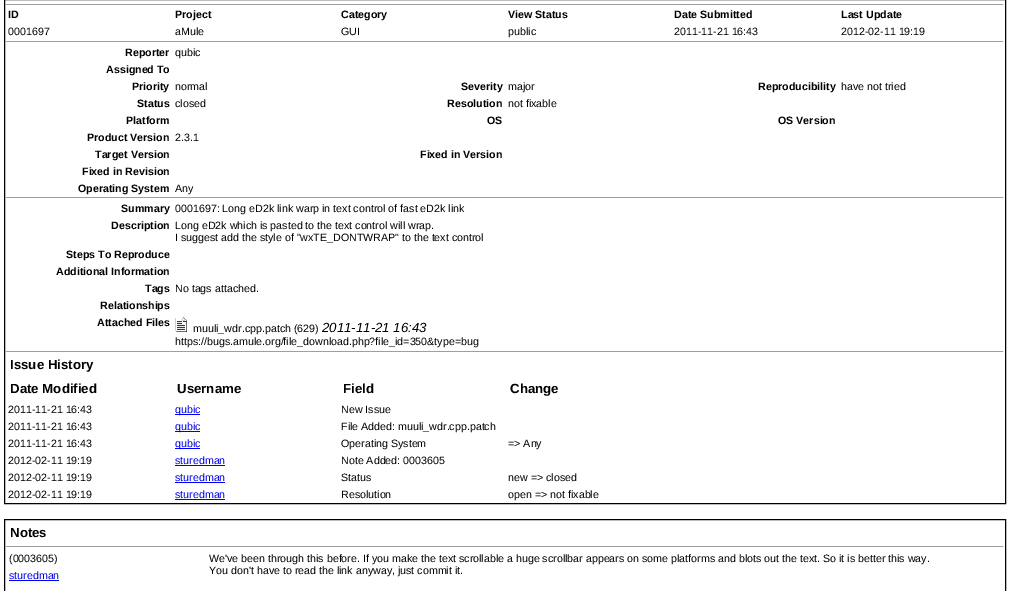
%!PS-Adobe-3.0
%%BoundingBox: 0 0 1010 591
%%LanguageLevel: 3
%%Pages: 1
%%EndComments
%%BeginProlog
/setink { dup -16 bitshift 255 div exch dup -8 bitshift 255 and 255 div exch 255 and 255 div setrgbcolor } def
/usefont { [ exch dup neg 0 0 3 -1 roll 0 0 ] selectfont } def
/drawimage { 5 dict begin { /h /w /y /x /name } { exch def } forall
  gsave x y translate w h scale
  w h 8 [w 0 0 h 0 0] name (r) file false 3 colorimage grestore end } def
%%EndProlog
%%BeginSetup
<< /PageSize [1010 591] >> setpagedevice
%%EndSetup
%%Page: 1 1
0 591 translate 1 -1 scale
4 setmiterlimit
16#FFFFFF setink
0 0 1010 591 rectfill
16#000000 setink
4.5 -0.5 1001 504 rectstroke
16#9F9F9F setink
6 4 998 1 rectfill
16#EEEEEE setink
1003 4 1 1 rectfill
/LiberationSans-Bold 10.67 usefont
16#000000 setink
[
    [(ID) 8 18]
    [(Project) 175 18]
    [(Category) 341 18]
    [(View Status) 508 18]
    [(Date Submitted) 674 18]
    [(Last Update) 841 18]
] { aload pop moveto show } forall
/LiberationSans-Regular 10.67 usefont
[
    [(0001697) 8 35]
    [(aMule) 175 35]
    [(GUI) 341 35]
    [(public) 508 35]
    [(2011-11-21 16:43) 674 35]
    [(2012-02-11 19:19) 841 35]
] { aload pop moveto show } forall
16#9F9F9F setink
6 41 998 1 rectfill
16#EEEEEE setink
1003 41 1 1 rectfill
/LiberationSans-Bold 10.67 usefont
16#000000 setink
125 56 moveto (Reporter) show
/LiberationSans-Regular 10.67 usefont
175 56 moveto (qubic) show
/LiberationSans-Bold 10.67 usefont
106 73 moveto (Assigned To) show
132 90 moveto (Priority) show
/LiberationSans-Regular 10.67 usefont
175 90 moveto (normal) show
/LiberationSans-Bold 10.67 usefont
461 90 moveto (Severity) show
/LiberationSans-Regular 10.67 usefont
508 90 moveto (major) show
/LiberationSans-Bold 10.67 usefont
758 90 moveto (Reproducibility) show
/LiberationSans-Regular 10.67 usefont
841 90 moveto (have not tried) show
/LiberationSans-Bold 10.67 usefont
137 107 moveto (Status) show
/LiberationSans-Regular 10.67 usefont
175 107 moveto (closed) show
/LiberationSans-Bold 10.67 usefont
447 107 moveto (Resolution) show
/LiberationSans-Regular 10.67 usefont
508 107 moveto (not fixable) show
/LiberationSans-Bold 10.67 usefont
[
    [(Platform) 126 124]
    [(OS) 487 124]
    [(OS Version) 778 124]
    [(Product Version) 87 141]
] { aload pop moveto show } forall
/LiberationSans-Regular 10.67 usefont
175 141 moveto (2.3.1) show
/LiberationSans-Bold 10.67 usefont
[
    [(Target Version) 95 158]
    [(Fixed in Version) 420 158]
    [(Fixed in Revision) 82 175]
    [(Operating System) 78 192]
] { aload pop moveto show } forall
/LiberationSans-Regular 10.67 usefont
175 192 moveto (Any) show
16#9F9F9F setink
6 197 998 1 rectfill
16#EEEEEE setink
1003 197 1 1 rectfill
/LiberationSans-Bold 10.67 usefont
16#000000 setink
121 212 moveto (Summary) show
/LiberationSans-Regular 10.67 usefont
175 212 moveto (0001697: Long eD2k link warp in text control of fast eD2k link) show
/LiberationSans-Bold 10.67 usefont
111 229 moveto (Description) show
/LiberationSans-Regular 10.67 usefont
175 229 moveto (Long eD2k which is pasted to the text control will wrap.) show
175 241 moveto (I suggest add the style of "wxTE_DONTWRAP" to the text control) show
/LiberationSans-Bold 10.67 usefont
[
    [(Steps To Reproduce) 66 258]
    [(Additional Information) 56 275]
    [(Tags) 145 292]
] { aload pop moveto show } forall
/LiberationSans-Regular 10.67 usefont
175 292 moveto (No tags attached.) show
/LiberationSans-Bold 10.67 usefont
100 309 moveto (Relationships) show
97 326 moveto (Attached Files) show
(img1.raw) 175 317 12 15 drawimage
/LiberationSans-Regular 10.67 usefont
193 332 moveto (muuli_wdr.cpp.patch \(629\)) show
/LiberationSans-Italic 13.25 usefont
322 332 moveto (2011-11-21 16:43) show
/LiberationSans-Regular 10.67 usefont
175 345 moveto (https://bugs.amule.org/file_download.php?file_id=350&type=bug) show
16#9F9F9F setink
6 351 998 1 rectfill
16#EEEEEE setink
1003 351 1 1 rectfill
/LiberationSans-Bold 13.25 usefont
16#000000 setink
[
    [(Issue History) 10 369]
    [(Date Modified) 10 393]
    [(Username) 177 393]
    [(Field) 343 393]
    [(Change) 510 393]
] { aload pop moveto show } forall
/LiberationSans-Regular 10.67 usefont
8 413 moveto (2011-11-21 16:43) show
16#0000EE setink
175 414 25 1 rectfill
175 413 moveto (qubic) show
16#000000 setink
341 413 moveto (New Issue) show
8 430 moveto (2011-11-21 16:43) show
16#0000EE setink
175 431 25 1 rectfill
175 430 moveto (qubic) show
16#000000 setink
341 430 moveto (File Added: muuli_wdr.cpp.patch) show
8 447 moveto (2011-11-21 16:43) show
16#0000EE setink
175 448 25 1 rectfill
175 447 moveto (qubic) show
16#000000 setink
[
    [(Operating System) 341 447]
    [(=> Any) 508 447]
    [(2012-02-11 19:19) 8 464]
] { aload pop moveto show } forall
16#0000EE setink
175 464 moveto (sturedman) show
175 465 50 1 rectfill
16#000000 setink
341 464 moveto (Note Added: 0003605) show
8 481 moveto (2012-02-11 19:19) show
16#0000EE setink
175 481 moveto (sturedman) show
175 482 50 1 rectfill
16#000000 setink
[
    [(Status) 341 481]
    [(new => closed) 508 481]
    [(2012-02-11 19:19) 8 498]
] { aload pop moveto show } forall
16#0000EE setink
175 498 moveto (sturedman) show
175 499 50 1 rectfill
16#000000 setink
341 498 moveto (Resolution) show
508 498 moveto (open => not fixable) show
4.5 519.5 1001 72 rectstroke
/LiberationSans-Bold 13.25 usefont
10 537 moveto (Notes) show
16#9F9F9F setink
6 546 998 1 rectfill
16#EEEEEE setink
1003 546 1 1 rectfill
/LiberationSans-Regular 10.67 usefont
16#000000 setink
9 562 moveto (\(0003605\)) show
16#0000EE setink
9 579 moveto (sturedman) show
9 580 50 1 rectfill
16#000000 setink
209 562 moveto (We've been through this before. If you make the text scrollable a huge scrollbar appears on some platforms and blots out the text. So it is better this way.) show
209 574 moveto (You don't have to read the link anyway, just commit it.) show
showpage
%%EOF
